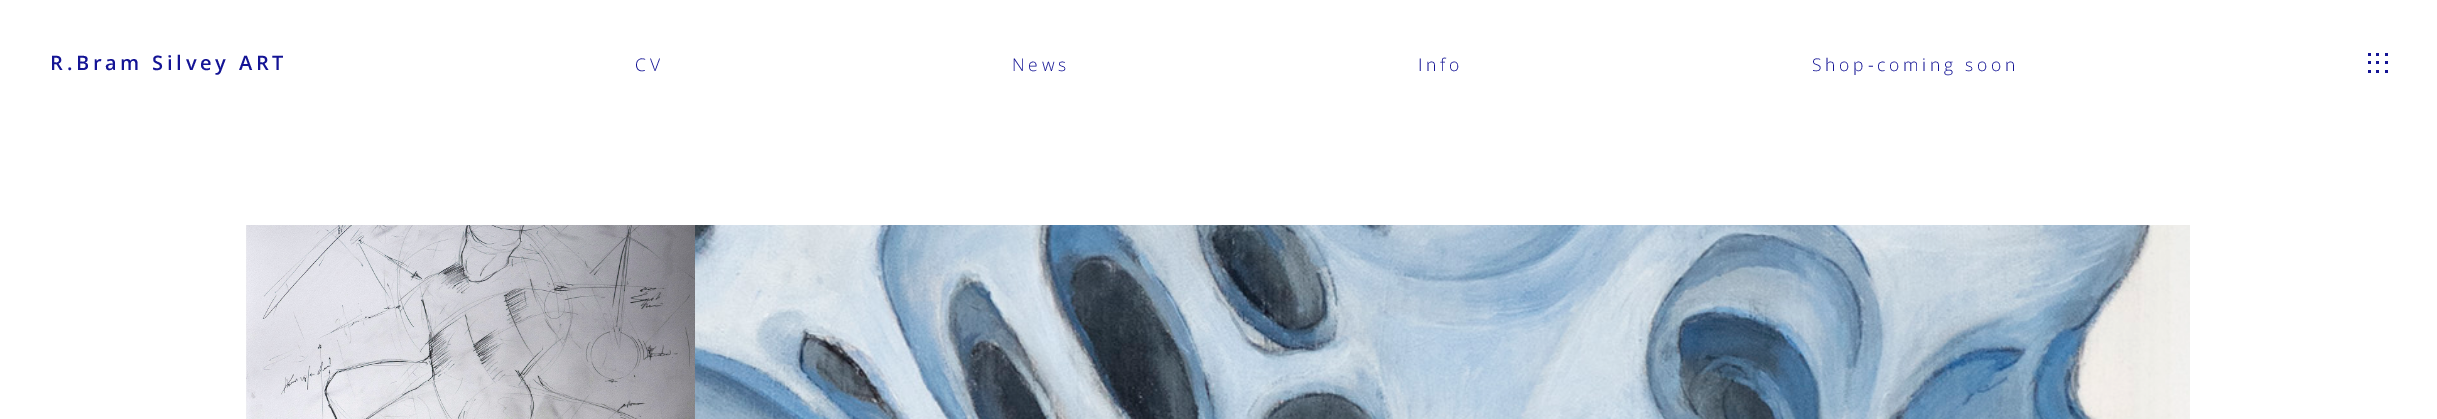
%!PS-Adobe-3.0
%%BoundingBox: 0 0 2437 419
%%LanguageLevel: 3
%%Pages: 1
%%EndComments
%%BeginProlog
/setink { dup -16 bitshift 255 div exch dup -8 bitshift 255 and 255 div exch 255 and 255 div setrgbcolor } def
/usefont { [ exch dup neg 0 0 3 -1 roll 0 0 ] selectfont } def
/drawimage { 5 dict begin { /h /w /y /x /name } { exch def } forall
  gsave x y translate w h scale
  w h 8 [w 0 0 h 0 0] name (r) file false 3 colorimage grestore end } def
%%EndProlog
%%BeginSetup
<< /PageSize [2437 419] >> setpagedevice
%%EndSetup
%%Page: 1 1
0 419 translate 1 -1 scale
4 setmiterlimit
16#FFFFFF setink
0 0 2437 419 rectfill
/OpenSans-SemiBold 20 usefont
16#141495 setink
50 70 moveto 3.75 0 (R.Bram Silvey ART) ashow
/OpenSans-Light 17.5 usefont
635 71 moveto 3.75 0 (CV) ashow
1012 71 moveto 3.75 0 (News) ashow
1418 71 moveto 3.75 0 (Info) ashow
1812 71 moveto 3.75 0 (Shop-coming soon) ashow
[
    [2368 53 3 3 16#141495]
    [2376 53 3 3 16#141495]
    [2385 53 3 3 16#141495]
    [2368 61 3 3 16#141495]
    [2376 61 3 3 16#141495]
    [2385 61 3 3 16#141495]
    [2368 70 3 3 16#141495]
    [2376 70 3 3 16#141495]
    [2385 70 3 3 16#141495]
] { aload pop setink rectfill } forall
(img1.raw) 246 225 1 194 drawimage
(img2.raw) 246 225 1 194 drawimage
(img3.raw) 246 225 1 194 drawimage
(img4.raw) 246 225 1 194 drawimage
(img5.raw) 246 225 1944 194 drawimage
(img6.raw) 246 225 1 194 drawimage
(img7.raw) 246 225 1 194 drawimage
(img8.raw) 246 225 449 194 drawimage
showpage
%%EOF
